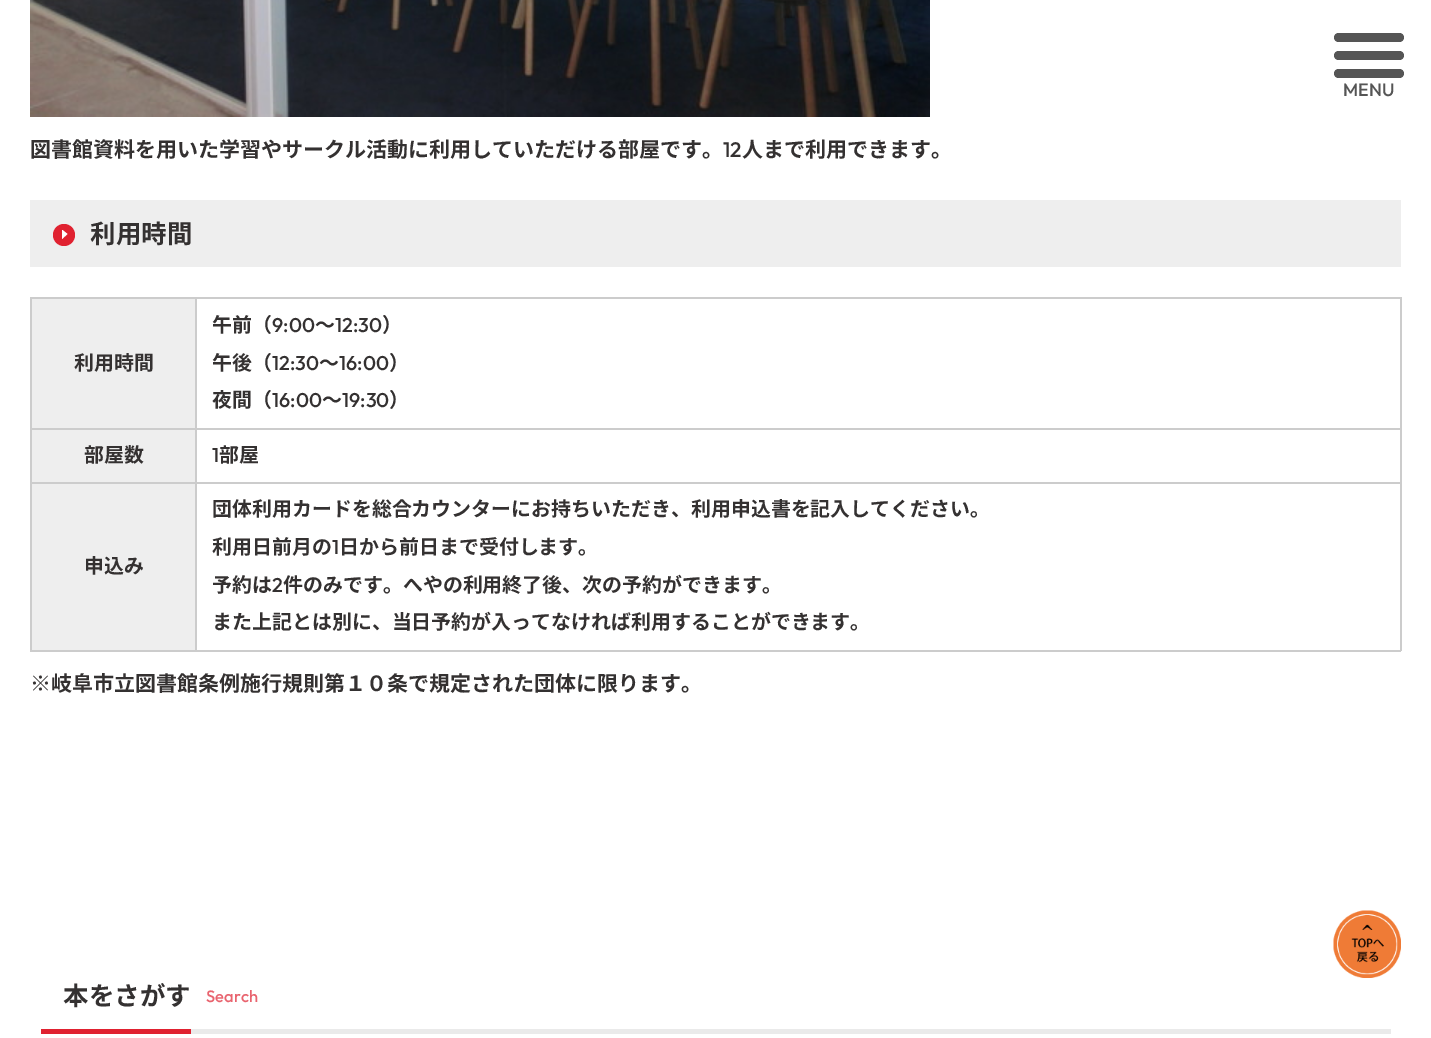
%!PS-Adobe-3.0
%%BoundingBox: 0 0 1431 1038
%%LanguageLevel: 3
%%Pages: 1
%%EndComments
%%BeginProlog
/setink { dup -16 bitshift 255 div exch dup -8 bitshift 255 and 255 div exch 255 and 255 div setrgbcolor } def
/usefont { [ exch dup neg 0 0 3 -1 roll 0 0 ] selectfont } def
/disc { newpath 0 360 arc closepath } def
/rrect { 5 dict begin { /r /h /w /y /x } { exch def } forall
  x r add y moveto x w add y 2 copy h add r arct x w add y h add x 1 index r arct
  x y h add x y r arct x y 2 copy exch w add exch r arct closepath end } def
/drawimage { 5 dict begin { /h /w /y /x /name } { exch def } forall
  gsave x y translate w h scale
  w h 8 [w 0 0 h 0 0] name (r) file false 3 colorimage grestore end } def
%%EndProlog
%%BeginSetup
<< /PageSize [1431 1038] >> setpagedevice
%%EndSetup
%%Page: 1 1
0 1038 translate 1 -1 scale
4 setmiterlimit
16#FFFFFF setink
0 0 1431 1038 rectfill
16#555555 setink
1334 33 70 9 4.5 rrect fill
1334 51 70 9 4.5 rrect fill
1334 69 70 9 4.5 rrect fill
/Outfit-Medium 18 usefont
1343 96 moveto (MENU) show
(img1.raw) 30 0 900 117 drawimage
/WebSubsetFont-Bold 21 usefont
16#343131 setink
30 157 moveto (図書館資料を用いた学習やサークル活動に利用していただける部屋です。) show
/Outfit-Medium 21 usefont
723 157 moveto (12) show
/WebSubsetFont-Bold 21 usefont
742 157 moveto (人まで利用できます。) show
16#EEEEEE setink
30 200 1371 67 rectfill
16#E02130 setink
64 235 11 disc fill
/WebSubsetFont-Bold 25.5 usefont
16#343131 setink
90 243 moveto (利用時間) show
16#FFFFFF setink
62 230 moveto 62.5 230 lineto 67.5 234 lineto 62 239 lineto closepath fill
[
    [32 299 163 129 16#EEEEEE]
    [195 297 1206 2 16#CCCCCC]
    [195 428 1206 2 16#CCCCCC]
    [195 482 1206 2 16#CCCCCC]
    [1400 482 2 169 16#CCCCCC]
    [195 650 1206 2 16#CCCCCC]
    [195 482 2 169 16#CCCCCC]
    [30 482 167 2 16#CCCCCC]
    [195 428 2 55 16#CCCCCC]
    [30 428 167 2 16#CCCCCC]
    [195 297 2 132 16#CCCCCC]
    [30 297 167 2 16#CCCCCC]
    [30 650 167 2 16#CCCCCC]
    [30 482 2 169 16#CCCCCC]
    [30 428 2 55 16#CCCCCC]
    [30 297 2 132 16#CCCCCC]
] { aload pop setink rectfill } forall
/WebSubsetFont-Bold 19.95 usefont
16#343131 setink
74 370 moveto (利用時間) show
16#CCCCCC setink
1400 428 2 55 rectfill
1400 297 2 132 rectfill
16#343131 setink
212 332 moveto (午前（) show
/Outfit-Medium 19.95 usefont
272 332 moveto (9:00) show
/WebSubsetFont-Bold 19.95 usefont
315 332 moveto (～) show
/Outfit-Medium 19.95 usefont
335 332 moveto (12:30) show
/WebSubsetFont-Bold 19.95 usefont
382 332 moveto (）) show
212 370 moveto (午後（) show
/Outfit-Medium 19.95 usefont
272 370 moveto (12:30) show
/WebSubsetFont-Bold 19.95 usefont
319 370 moveto (～) show
/Outfit-Medium 19.95 usefont
339 370 moveto (16:00) show
/WebSubsetFont-Bold 19.95 usefont
389 370 moveto (）) show
212 407 moveto (夜間（) show
/Outfit-Medium 19.95 usefont
272 407 moveto (16:00) show
/WebSubsetFont-Bold 19.95 usefont
322 407 moveto (～) show
/Outfit-Medium 19.95 usefont
342 407 moveto (19:30) show
/WebSubsetFont-Bold 19.95 usefont
389 407 moveto (）) show
16#EEEEEE setink
32 430 163 52 rectfill
16#343131 setink
84 462 moveto (部屋数) show
/Outfit-Medium 19.95 usefont
212 462 moveto (1) show
/WebSubsetFont-Bold 19.95 usefont
219 462 moveto (部屋) show
16#EEEEEE setink
32 484 163 166 rectfill
16#343131 setink
[
    [(申込み) 84 573]
    [(団体利用カードを総合カウンターにお持ちいただき、利用申込書を記入してください。) 212 516]
    [(利用日前月の) 212 554]
] { aload pop moveto show } forall
/Outfit-Medium 19.95 usefont
332 554 moveto (1) show
/WebSubsetFont-Bold 19.95 usefont
339 554 moveto (日から前日まで受付します。) show
212 592 moveto (予約は) show
/Outfit-Medium 19.95 usefont
272 592 moveto (2) show
/WebSubsetFont-Bold 19.95 usefont
283 592 moveto (件のみです。へやの利用終了後、次の予約ができます。) show
212 629 moveto (また上記とは別に、当日予約が入ってなければ利用することができます。) show
/WebSubsetFont-Bold 21 usefont
30 691 moveto (※岐阜市立図書館条例施行規則第１０条で規定された団体に限ります。) show
16#EAEAEA setink
191 1029 1200 5 rectfill
/WebSubsetFont-Bold 25.5 usefont
16#343131 setink
63 1005 moveto (本をさがす) show
/Outfit-Medium 16.5 usefont
16#E9646F setink
206 1002 moveto (Search) show
16#E02130 setink
41 1029 150 5 rectfill
(img2.raw) 1333 910 68 68 drawimage
showpage
%%EOF
